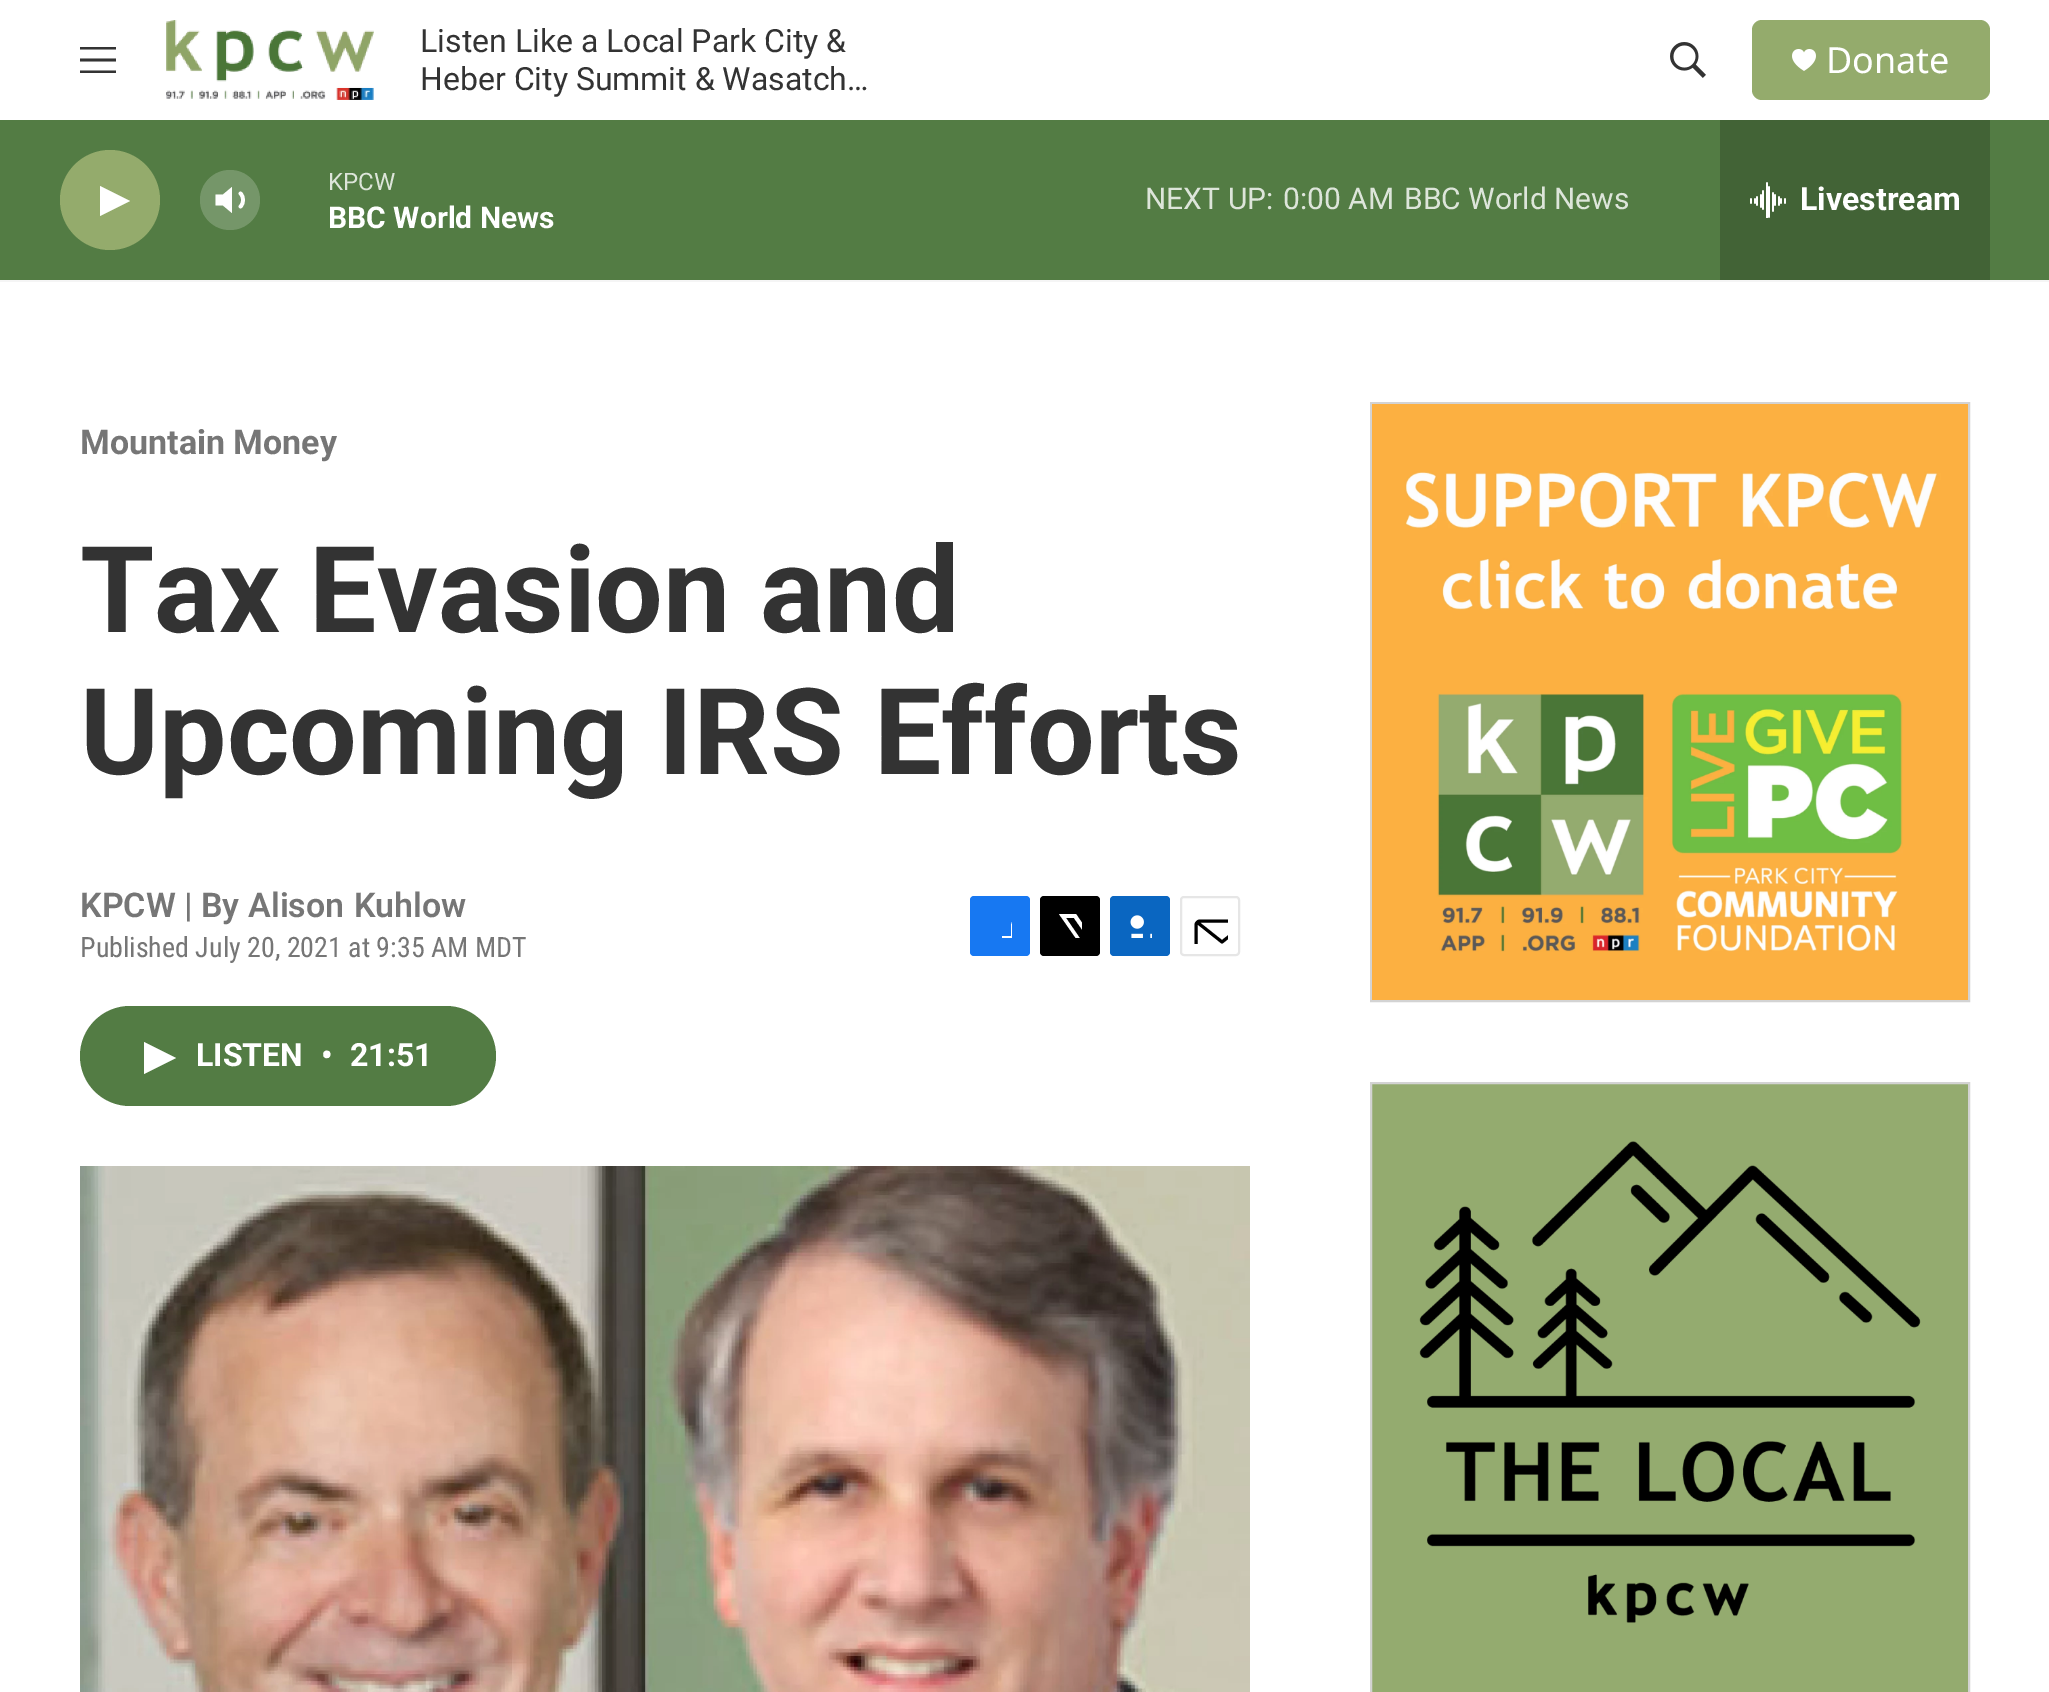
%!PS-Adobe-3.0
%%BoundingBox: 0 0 2049 1692
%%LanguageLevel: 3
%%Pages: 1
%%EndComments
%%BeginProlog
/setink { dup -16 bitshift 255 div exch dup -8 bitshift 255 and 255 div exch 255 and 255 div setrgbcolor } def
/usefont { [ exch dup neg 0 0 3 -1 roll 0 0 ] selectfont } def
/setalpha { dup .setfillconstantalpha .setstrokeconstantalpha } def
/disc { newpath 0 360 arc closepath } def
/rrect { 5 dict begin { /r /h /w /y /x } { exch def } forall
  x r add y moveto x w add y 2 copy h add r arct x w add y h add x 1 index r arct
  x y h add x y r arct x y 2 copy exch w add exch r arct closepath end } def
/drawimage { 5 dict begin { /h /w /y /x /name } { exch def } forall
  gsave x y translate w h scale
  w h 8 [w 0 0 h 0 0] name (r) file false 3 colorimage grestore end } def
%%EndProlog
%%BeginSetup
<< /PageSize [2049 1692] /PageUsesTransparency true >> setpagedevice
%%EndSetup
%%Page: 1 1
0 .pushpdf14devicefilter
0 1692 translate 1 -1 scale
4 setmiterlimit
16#FFFFFF setink
0 0 2049 1692 rectfill
16#F5F5F5 setink
0 280 2049 2 rectfill
16#333333 setink
80 61.5 moveto 80 58.5 lineto 116 58.5 lineto 116 61.5 lineto closepath 80 49.5 moveto 80 47 lineto 116 47 lineto 116 49.5 lineto closepath 80 73 moveto 80 70.5 lineto 116 70.5 lineto 116 73 lineto closepath eofill
(img1.raw) 166 20 208 80 drawimage
/Roboto-Regular 32 usefont
420 52 moveto (Listen Like a Local Park City &) show
420 90 moveto (Heber City Summit & Wasatch…) show
(img2.raw) 1670 42 36 36 drawimage
16#94AB6C setink
1752 20 238 80 10 rrect fill
(img3.raw) 1792 49 24 22 drawimage
/NotoSans-Regular 36 usefont
16#FFFFFF setink
1826 73 moveto (Donate) show
16#537C44 setink
0 120 2049 160 rectfill
16#94AB6C setink
110 200 50 disc fill
16#FFFFFF setink
100 186 moveto 130 201 lineto 100 216 lineto closepath fill
232 187 moveto 223 194.5 lineto 215.5 194.5 lineto 215.5 205.5 lineto 223 205.5 lineto 232 213 lineto closepath fill
3.7 setlinewidth
1 setlinecap
1 setlinejoin
240.5 193.5 moveto 244 197 244 203 240.5 206.5 curveto stroke
0.2 setalpha
230 200 30 disc fill
/Roboto-Regular 24 usefont
1 setalpha
16#DDE5DA setink
328 190 moveto (KPCW) show
/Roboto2-Bold 30 usefont
16#FFFFFF setink
328 228 moveto (BBC World News) show
/Roboto-Regular 30 usefont
16#DDE5DA setink
[
    [(NEXT UP:) 1145 209]
    [(0:00 AM) 1283 209]
    [(BBC World News) 1404 209]
] { aload pop moveto show } forall
16#426336 setink
1720 120 270 160 rectfill
(img4.raw) 1750 182 36 36 drawimage
/Roboto2-Bold 32 usefont
16#FFFFFF setink
1800 210 moveto (Livestream) show
/Roboto-Bold 34 usefont
16#767676 setink
80 454 moveto (Mountain Money) show
/Roboto-Bold 120 usefont
16#333333 setink
80 632 moveto (Tax Evasion and) show
80 774 moveto (Upcoming IRS Efforts) show
/Roboto-SemiBold 34 usefont
16#767676 setink
80 917 moveto (KPCW | By) show
248 917 moveto 1 0 32 (Alison Kuhlow) widthshow
/RobotoCondensed-Regular 28 usefont
80 957 moveto (Published July 20, 2021 at 9:35 AM MDT) show
16#1778F2 setink
970 896 60 60 4 rrect fill
gsave
988 914 24 24 rectclip
16#FFFFFF setink
1021 956 moveto 1011 956 lineto 1011 946 lineto 1002 946 lineto 1002 936 lineto 1011 936 lineto 1011 925 lineto 1013 916 1022 914 1030 915 curveto 1030 924 lineto 1019 924 1021 927 1021 936 curveto 1030 936 lineto 1030 941 lineto 1029 946 lineto 1021 946 lineto closepath fill
grestore
16#000000 setink
1040 896 60 60 4 rrect fill
gsave
1058 914 24 24 rectclip
16#FFFFFF setink
1094 939 moveto 1100 948 lineto 1100 950 1101 953 1099 954 curveto 1074 918 lineto 1066 918 lineto 1092 956 lineto 1087 956 lineto 1084 951 lineto 1080 956 lineto 1074 956 lineto 1082 947 lineto 1059 914 lineto 1076 914 lineto 1091 936 lineto 1100 926 lineto 1100 932 lineto closepath fill
grestore
16#0A66C1 setink
1110 896 60 60 4 rrect fill
(img5.raw) 1130 915 22 23 drawimage
16#E6E6E6 setink
2 setlinewidth
0 setlinecap
0 setlinejoin
1181 897 58 58 3 rrect stroke
gsave
1192 908 36 36 rectclip
16#000000 setink
3 setlinewidth
1 setlinecap
1 setlinejoin
1248 952 moveto 1248 954 1246 955.5 1244 955.5 curveto 1200 955.5 lineto 1198 955.5 1196 954 1196 952 curveto 1196 925 lineto 1196 923 1198 921 1200 921 curveto 1244 921 lineto 1246 921 1248 923 1248 925 curveto closepath 1246.5 922.5 moveto 1222 942 lineto 1197.5 922.5 lineto stroke
grestore
16#537C44 setink
80 1006 416 100 50 rrect fill
16#FFFFFF setink
144 1042 moveto 176 1058 lineto 144 1074 lineto closepath fill
/Roboto2-Bold 32 usefont
[
    [(LISTEN) 196 1066]
    [(•) 321 1066]
    [(21:51) 350 1066]
] { aload pop moveto show } forall
(img6.raw) 80 1166 1170 526 drawimage
16#D3D3D3 setink
1371 403 598 598 rectstroke
(img7.raw) 1372 404 596 596 drawimage
16#94AB6F setink
1371 1083 moveto 1969 1083 lineto 1969 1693 lineto 1371 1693 lineto closepath gsave fill grestore
16#D3D3D3 setink
stroke
(img8.raw) 1419 1141 502 482 drawimage
.poppdf14devicefilter showpage
%%EOF
